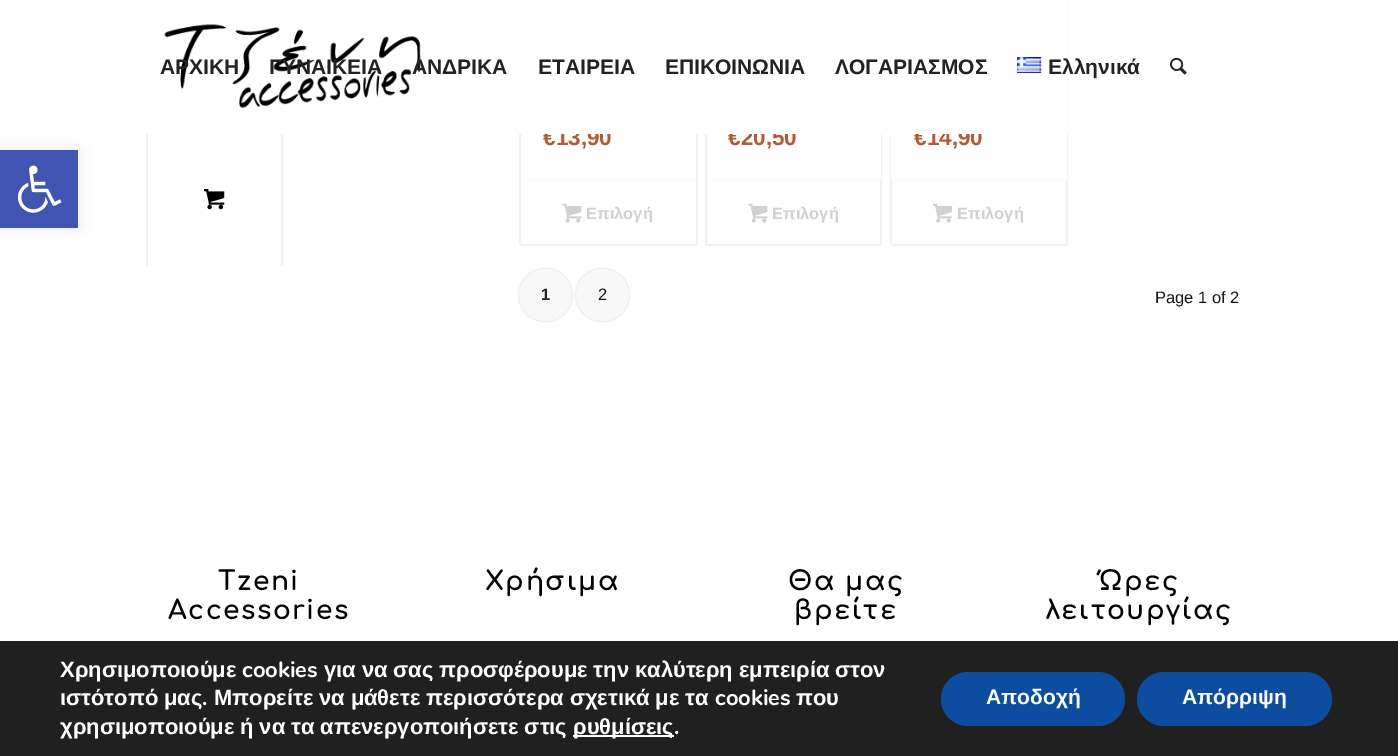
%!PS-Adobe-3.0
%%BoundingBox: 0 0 1398 756
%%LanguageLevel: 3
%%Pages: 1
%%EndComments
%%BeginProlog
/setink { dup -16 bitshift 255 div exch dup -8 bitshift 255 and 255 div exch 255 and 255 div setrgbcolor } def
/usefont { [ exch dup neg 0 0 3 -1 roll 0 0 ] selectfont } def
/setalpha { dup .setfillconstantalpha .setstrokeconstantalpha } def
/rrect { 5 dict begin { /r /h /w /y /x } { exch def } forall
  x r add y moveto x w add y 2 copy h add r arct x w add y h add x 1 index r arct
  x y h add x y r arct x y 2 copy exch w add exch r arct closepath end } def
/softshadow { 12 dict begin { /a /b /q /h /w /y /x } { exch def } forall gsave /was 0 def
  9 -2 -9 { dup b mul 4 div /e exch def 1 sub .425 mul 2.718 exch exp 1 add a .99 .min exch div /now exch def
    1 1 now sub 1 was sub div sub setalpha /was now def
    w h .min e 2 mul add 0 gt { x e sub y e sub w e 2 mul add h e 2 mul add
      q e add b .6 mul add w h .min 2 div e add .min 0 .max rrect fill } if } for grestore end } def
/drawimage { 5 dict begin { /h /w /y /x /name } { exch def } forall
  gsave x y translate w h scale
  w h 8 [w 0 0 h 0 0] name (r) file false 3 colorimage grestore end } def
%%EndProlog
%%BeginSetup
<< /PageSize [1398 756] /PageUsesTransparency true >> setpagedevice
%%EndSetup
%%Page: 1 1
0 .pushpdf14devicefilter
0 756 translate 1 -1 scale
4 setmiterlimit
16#FFFFFF setink
0 0 1398 756 rectfill
16#000000 setink
0 150 78 78 0 7.5 0.1 softshadow
16#4054B2 setink
0 150 78 78 rectfill
(img1.raw) 17 165 45 48 drawimage
16#F2F2F2 setink
2 setlinewidth
520 -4 177 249 2 rrect stroke
/LiberationSans-Bold 22.5 usefont
16#B15A33 setink
543 145 moveto (€13,90) show
16#F2F2F2 setink
706 -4 175 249 2 rrect stroke
16#FFFFFF setink
707 32 moveto 881 32 lineto 881 178.5 lineto 881 179.5 880.5 180 879.5 180 curveto 708.5 180 lineto 707.5 180 707 179.5 707 178.5 curveto closepath fill
16#B15A33 setink
728 145 moveto (€20,50) show
16#F2F2F2 setink
891 -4 176 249 2 rrect stroke
16#FFFFFF setink
891 32 moveto 1067 32 lineto 1067 178.5 lineto 1067 179.5 1066.5 180 1065.5 180 curveto 892.5 180 lineto 891.5 180 891 179.5 891 178.5 curveto closepath fill
16#B15A33 setink
914 145 moveto (€14,90) show
16#FFFFFF setink
519 0 549 134 rectfill
(img2.raw) 164 24 257 85 drawimage
/LiberationSans-Bold 21 usefont
16#222222 setink
[
    [(ΑΡΧΙΚΗ) 160 74]
    [(ΓΥΝΑΙΚΕΙΑ) 269 74]
    [(ΑΝΔΡΙΚΑ) 412 74]
    [(ΕΤΑΙΡΕΙΑ) 538 74]
    [(ΕΠΙΚΟΙΝΩΝΙΑ) 665 74]
    [(ΛΟΓΑΡΙΑΣΜΟΣ) 835 74]
] { aload pop moveto show } forall
(img3.raw) 1017 57 25 16 drawimage
1048 74 moveto (Ελληνικά) show
(img4.raw) 1170 57 17 18 drawimage
16#F2F2F2 setink
281 134 2 132 rectfill
146 134 2 132 rectfill
(img5.raw) 204 189 21 21 drawimage
16#FCFCFC setink
521 180 175 2 rectfill
(img6.raw) 562 203 20 20 drawimage
/LiberationSans-Bold 16.5 usefont
16#D0D0D0 setink
586 219 moveto (Επιλογή) show
0.2 setalpha
16#F2F2F2 setink
707 180 174 2 rectfill
1 setalpha
(img6.raw) 748 203 20 20 drawimage
16#D0D0D0 setink
772 219 moveto (Επιλογή) show
0.2 setalpha
16#F2F2F2 setink
891 180 176 2 rectfill
1 setalpha
(img7.raw) 933 203 19 20 drawimage
16#D0D0D0 setink
957 219 moveto (Επιλογή) show
16#000000 setink
519 269 53 52 26 1 0.2 softshadow
16#F8F8F8 setink
519 269 53 52 26 rrect fill
16#222222 setink
541 300 moveto (1) show
16#000000 setink
576 269 53 52 26 1 0.2 softshadow
16#F8F8F8 setink
576 269 53 52 26 rrect fill
/LiberationSans-Regular 16.5 usefont
16#161616 setink
598 300 moveto (2) show
1155 303 moveto (Page 1 of 2) show
/Comfortaa-Bold 26.5 usefont
16#000000 setink
218 590 moveto 1.5 0 (Tzeni) ashow
168 619 moveto 1.5 0 (Accessories) ashow
485 590 moveto 1.5 0 (Χρήσιμα) ashow
788 590 moveto 1.5 0 (Θα μας) ashow
794 619 moveto 1.5 0 (βρείτε) ashow
1099 590 moveto 1.5 0 (Ώρες) ashow
1046 619 moveto 1.5 0 (λειτουργίας) ashow
16#202020 setink
0 641 1398 115 rectfill
/LiberationSans-Bold 22 usefont
16#FFFFFF setink
60 677 moveto (Χρησιμοποιούμε) show
/Nunito-Bold 22 usefont
242 677 moveto (cookies) show
/LiberationSans-Bold 22 usefont
324 677 moveto -0.25 0 32 (για να σας προσφέρουμε την καλύτερη εμπειρία στον) widthshow
60 705 moveto -0.25 0 32 (ιστότοπό μας) widthshow
/Nunito-Bold 22 usefont
202 705 moveto (.) show
/LiberationSans-Bold 22 usefont
214 705 moveto -0.25 0 32 (Μπορείτε να μάθετε περισσότερα σχετικά με τα) widthshow
/Nunito-Bold 22 usefont
715 705 moveto (cookies) show
/LiberationSans-Bold 22 usefont
796 705 moveto (που) show
60 734 moveto -0.25 0 32 (χρησιμοποιούμε ή να τα απενεργοποιήσετε στις) widthshow
573 735 101 2 rectfill
573 734 moveto (ρυθμίσεις) show
/Nunito-Bold 22 usefont
674 734 moveto (.) show
16#0C4DA2 setink
941 672 184 54 27 rrect fill
/LiberationSans-Bold 21 usefont
16#FFFFFF setink
986 704 moveto (Αποδοχή) show
16#0C4DA2 setink
1137 672 195 54 27 rrect fill
16#FFFFFF setink
1182 704 moveto (Απόρριψη) show
.poppdf14devicefilter showpage
%%EOF
